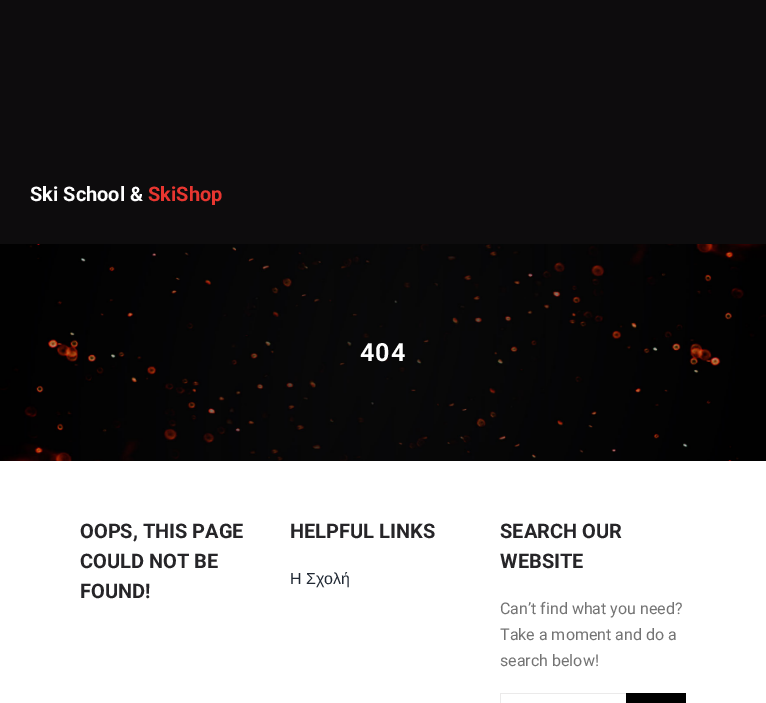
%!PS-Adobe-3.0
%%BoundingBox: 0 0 766 703
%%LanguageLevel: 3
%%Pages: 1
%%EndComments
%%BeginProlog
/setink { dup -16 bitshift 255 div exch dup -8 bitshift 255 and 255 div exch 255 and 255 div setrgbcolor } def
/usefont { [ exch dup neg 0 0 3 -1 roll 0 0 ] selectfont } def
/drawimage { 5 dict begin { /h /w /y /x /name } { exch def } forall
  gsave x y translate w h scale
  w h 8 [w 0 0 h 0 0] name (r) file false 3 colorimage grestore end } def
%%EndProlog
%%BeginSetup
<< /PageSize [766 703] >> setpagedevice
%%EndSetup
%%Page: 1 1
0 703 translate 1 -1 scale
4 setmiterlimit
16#FFFFFF setink
0 0 766 703 rectfill
16#0D0C0D setink
0 0 766 244 rectfill
/Roboto-Bold 20 usefont
16#FFFFFF setink
30 201 moveto (Ski School &) show
16#E83630 setink
148 201 moveto (SkiShop) show
(img1.raw) 0 244 766 217 drawimage
/Roboto-Bold 25 usefont
16#FFFFFF setink
360 361 moveto 1 0 (404) ashow
/Roboto-Bold 20 usefont
16#262528 setink
[
    [(OOPS, THIS PAGE) 80 538]
    [(COULD NOT BE) 80 568]
    [(FOUND!) 80 598]
    [(HELPFUL LINKS) 290 538]
] { aload pop moveto show } forall
/LiberationSans-Regular 16 usefont
16#212934 setink
290 584 moveto (Η Σχολή) show
/Roboto-Bold 20 usefont
16#262528 setink
500 538 moveto (SEARCH OUR) show
500 568 moveto (WEBSITE) show
/Roboto-Regular 16 usefont
16#747474 setink
[
    [(Can’t find what you need?) 500 614]
    [(Take a moment and do a) 500 640]
    [(search below!) 500 666]
] { aload pop moveto show } forall
[
    [500 693 126 1 16#EBEAEA]
    [500 693 1 10 16#EBEAEA]
    [626 693 60 10 16#000000]
] { aload pop setink rectfill } forall
showpage
%%EOF
